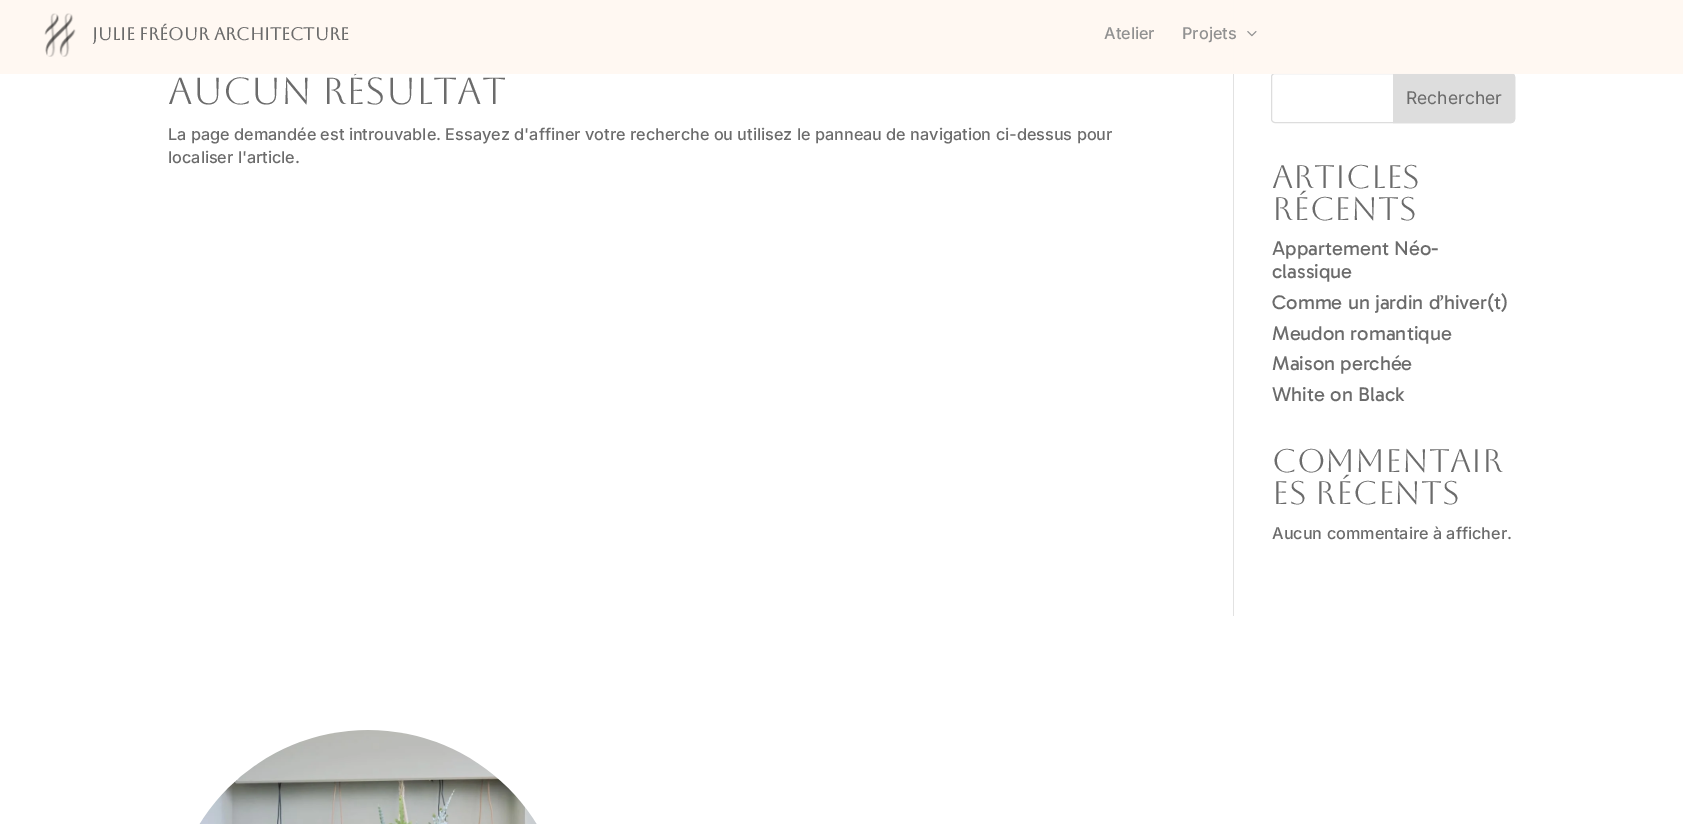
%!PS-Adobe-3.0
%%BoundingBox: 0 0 1683 824
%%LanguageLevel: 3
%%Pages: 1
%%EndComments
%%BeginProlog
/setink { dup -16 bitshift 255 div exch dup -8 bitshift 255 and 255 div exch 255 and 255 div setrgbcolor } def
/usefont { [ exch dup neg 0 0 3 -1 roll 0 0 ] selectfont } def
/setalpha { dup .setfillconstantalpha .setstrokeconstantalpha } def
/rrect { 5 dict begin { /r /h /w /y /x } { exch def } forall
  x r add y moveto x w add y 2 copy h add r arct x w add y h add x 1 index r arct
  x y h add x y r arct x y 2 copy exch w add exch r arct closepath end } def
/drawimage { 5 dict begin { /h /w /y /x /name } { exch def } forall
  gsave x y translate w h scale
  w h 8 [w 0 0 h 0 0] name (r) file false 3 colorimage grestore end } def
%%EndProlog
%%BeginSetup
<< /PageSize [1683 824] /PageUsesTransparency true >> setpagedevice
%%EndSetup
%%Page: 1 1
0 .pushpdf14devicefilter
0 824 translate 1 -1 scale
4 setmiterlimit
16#FFFFFF setink
0 0 1683 824 rectfill
16#E2E2E2 setink
1233 0 1 616 rectfill
/Aboreto-Regular 37.5 usefont
16#6B6B6B setink
168 104 moveto (Aucun résultat) show
16#DDDDDD setink
1271.5 73.5 243 49 3.5 rrect stroke
1393.5 73.5 moveto 1511 73.5 lineto 1513 73.5 1514.5 75 1514.5 77 curveto 1514.5 119 lineto 1514.5 121 1513 122.5 1511 122.5 curveto 1393.5 122.5 lineto closepath gsave fill grestore
stroke
0.98 setalpha
16#FFF8F2 setink
0 0 1683 74 rectfill
1 setalpha
(img1.raw) 44 13 32 44 drawimage
/Aboreto-Bold 17.5 usefont
16#6B6B6B setink
92 40 moveto (Julie Fréour Architecture) show
/Inter-Medium 16.25 usefont
16#919191 setink
1104 39 moveto (Atelier) show
1182 39 moveto (Projets) show
(img2.raw) 1247 31 10 6 drawimage
16#6B6B6B setink
168 140 moveto (La page demandée est introuvable. Essayez d'affiner votre recherche ou utilisez le panneau de navigation ci-dessus pour) show
168 163 moveto (localiser l'article.) show
/Inter-Regular 17.5 usefont
1406 104 moveto (Rechercher) show
/Aboreto-Regular 32.5 usefont
1272 188 moveto (Articles) show
1272 220 moveto (récents) show
/Gabarito-Regular 20 usefont
[
    [(Appartement Néo-) 1272 255]
    [(classique) 1272 278]
    [(Comme un jardin d’hiver\(t\)) 1272 309]
    [(Meudon romantique) 1272 340]
    [(Maison perchée) 1272 370]
    [(White on Black) 1272 401]
] { aload pop moveto show } forall
/Aboreto-Regular 32.5 usefont
1272 472 moveto (Commentair) show
1272 504 moveto (es récents) show
/Inter-Medium 16.25 usefont
1272 539 moveto (Aucun commentaire à afficher.) show
(img3.raw) 199 730 338 94 drawimage
.poppdf14devicefilter showpage
%%EOF
